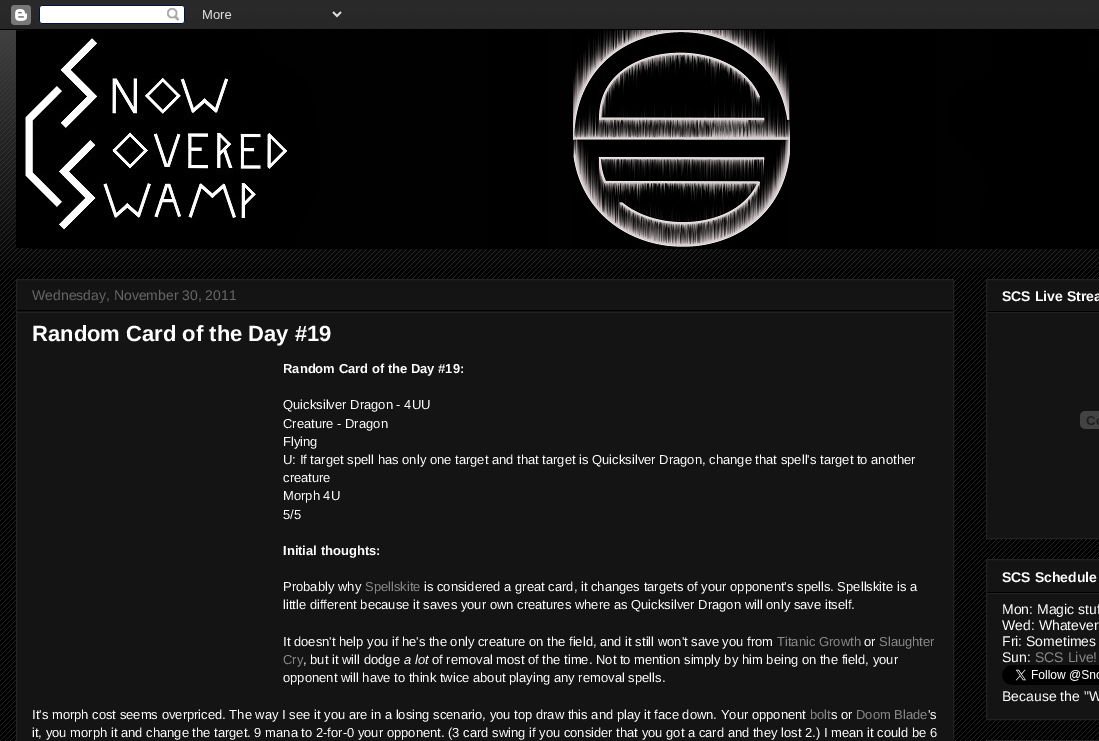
%!PS-Adobe-3.0
%%BoundingBox: 0 0 1099 741
%%LanguageLevel: 3
%%Pages: 1
%%EndComments
%%BeginProlog
/setink { dup -16 bitshift 255 div exch dup -8 bitshift 255 and 255 div exch 255 and 255 div setrgbcolor } def
/usefont { [ exch dup neg 0 0 3 -1 roll 0 0 ] selectfont } def
/drawimage { 5 dict begin { /h /w /y /x /name } { exch def } forall
  gsave x y translate w h scale
  w h 8 [w 0 0 h 0 0] name (r) file false 3 colorimage grestore end } def
%%EndProlog
%%BeginSetup
<< /PageSize [1099 741] >> setpagedevice
%%EndSetup
%%Page: 1 1
0 741 translate 1 -1 scale
4 setmiterlimit
16#000000 setink
0 0 1099 741 rectfill
(img1.raw) 0 13 1099 728 drawimage
(img2.raw) 0 0 1099 268 drawimage
(img3.raw) 0 0 1099 30 drawimage
(img4.raw) 16 30 1083 219 drawimage
16#141414 setink
16.5 279.5 moveto 953.5 279.5 lineto 953.5 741.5 lineto 16.5 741.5 lineto closepath gsave fill grestore
16#222222 setink
stroke
16#000000 setink
17 310 936 1 rectfill
/LiberationSans-Regular 14 usefont
16#666666 setink
32 300 moveto (Wednesday, November 30, 2011) show
16#222222 setink
17 312 936 1 rectfill
/LiberationSans-Bold 22 usefont
16#FFFFFF setink
32 341 moveto (Random Card of the Day #19) show
/LiberationSans-Bold 13 usefont
283 373 moveto (Random Card of the Day #19:) show
/LiberationSans-Regular 13 usefont
[
    [(Quicksilver Dragon - 4UU) 283 409]
    [(Creature - Dragon) 283 428]
    [(Flying) 283 446]
    [(U: If target spell has only one target and that target is Quicksilver Dragon, change that spell's target to another) 283 464]
    [(creature) 283 482]
    [(Morph 4U) 283 500]
    [(5/5) 283 519]
] { aload pop moveto show } forall
/LiberationSans-Bold 13 usefont
283 555 moveto (Initial thoughts:) show
/LiberationSans-Regular 13 usefont
283 591 moveto (Probably why) show
16#888888 setink
365 591 moveto (Spellskite) show
16#FFFFFF setink
[
    [(is considered a great card, it changes targets of your opponent's spells. Spellskite is a) 424 591]
    [(little different because it saves your own creatures where as Quicksilver Dragon will only save itself.) 283 609]
    [(It doesn't help you if he's the only creature on the field, and it still won't save you from) 283 646]
] { aload pop moveto show } forall
16#888888 setink
777 646 moveto (Titanic Growth) show
16#FFFFFF setink
864 646 moveto (or) show
16#888888 setink
879 646 moveto (Slaughter) show
283 664 moveto (Cry) show
16#FFFFFF setink
303 664 moveto (, but it will dodge) show
/LiberationSans-Italic 13 usefont
404 664 moveto (a lot) show
/LiberationSans-Regular 13 usefont
[
    [(of removal most of the time. Not to mention simply by him being on the field, your) 432 664]
    [(opponent will have to think twice about playing any removal spells.) 283 682]
    [(It's morph cost seems overpriced. The way I see it you are in a losing scenario, you top draw this and play it face down. Your opponent) 32 719]
] { aload pop moveto show } forall
16#888888 setink
810 719 moveto (bolt) show
16#FFFFFF setink
831 719 moveto (s or) show
16#888888 setink
856 719 moveto (Doom Blade) show
16#FFFFFF setink
928 719 moveto ('s) show
32 737 moveto (it, you morph it and change the target. 9 mana to 2-for-0 your opponent. \(3 card swing if you consider that you got a card and they lost 2.\) I mean it could be 6) show
16#141414 setink
986.5 279.5 moveto 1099.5 279.5 lineto 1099.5 538.5 lineto 986.5 538.5 lineto closepath gsave fill grestore
16#222222 setink
stroke
16#000000 setink
987 311 112 1 rectfill
/LiberationSans-Bold 14 usefont
16#FFFFFF setink
1002 301 moveto (SCS Live Strea) show
16#222222 setink
987 312 112 1 rectfill
(img5.raw) 1080 411 19 18 drawimage
16#141414 setink
986.5 559.5 moveto 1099.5 559.5 lineto 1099.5 719.5 lineto 986.5 719.5 lineto closepath gsave fill grestore
16#222222 setink
stroke
16#000000 setink
987 592 112 1 rectfill
16#FFFFFF setink
1002 582 moveto (SCS Schedule) show
16#222222 setink
987 593 112 1 rectfill
/LiberationSans-Regular 14 usefont
16#FFFFFF setink
[
    [(Mon: Magic stuf) 1002 614]
    [(Wed: Whatever) 1002 630]
    [(Fri: Sometimes) 1002 646]
    [(Sun:) 1002 662]
] { aload pop moveto show } forall
16#888888 setink
1035 662 moveto (SCS Live!) show
(img6.raw) 1002 665 97 20 drawimage
16#FFFFFF setink
1002 701 moveto (Because the "W) show
16#222222 setink
986.5 740.5 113 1 rectstroke
showpage
%%EOF
